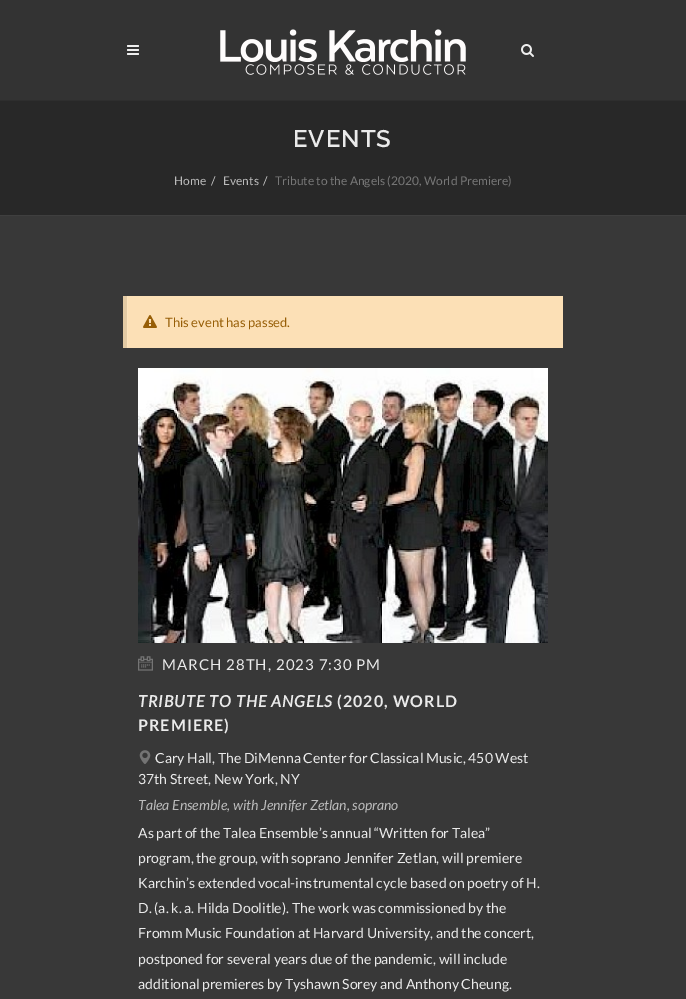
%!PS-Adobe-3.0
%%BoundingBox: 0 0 686 999
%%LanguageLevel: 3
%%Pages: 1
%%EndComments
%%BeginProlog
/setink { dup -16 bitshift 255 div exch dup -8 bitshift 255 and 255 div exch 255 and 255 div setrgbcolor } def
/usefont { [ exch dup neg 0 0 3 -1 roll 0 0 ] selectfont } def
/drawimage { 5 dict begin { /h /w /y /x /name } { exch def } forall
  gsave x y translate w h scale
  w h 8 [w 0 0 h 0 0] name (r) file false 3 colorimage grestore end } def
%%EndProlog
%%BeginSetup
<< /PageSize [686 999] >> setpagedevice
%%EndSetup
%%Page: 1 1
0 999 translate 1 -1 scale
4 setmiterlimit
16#383838 setink
0 0 686 999 rectfill
16#333333 setink
0 0 686 100 rectfill
16#2E2E2E setink
0 100 686 1 rectfill
(img1.raw) 127 45 12 10 drawimage
(img2.raw) 220 29 246 46 drawimage
(img3.raw) 521 44 13 13 drawimage
16#282828 setink
0 101 686 114 rectfill
16#3F3F3F setink
0 215 686 1 rectfill
/Raleway-SemiBold 24 usefont
16#EAEAEA setink
293 147 moveto 1 0 (EVENTS) ashow
/Lato-Regular 12 usefont
16#BBBBBB setink
174 185 moveto (Home) show
16#CCCCCC setink
211 185 moveto (/) show
16#BBBBBB setink
223 185 moveto (Events) show
16#CCCCCC setink
263 185 moveto (/) show
16#777777 setink
275 185 moveto (Tribute to the Angels \(2020, World Premiere\)) show
[
    [128 296 435 52 16#FCE0B6]
    [123 296 4 52 16#E3CAA4]
    [127 296 1 52 16#FCE3BD]
] { aload pop setink rectfill } forall
(img4.raw) 143 315 14 13 drawimage
/Lato-Regular 13 usefont
16#975E06 setink
165 327 moveto (This event has passed.) show
(img5.raw) 138 368 410 275 drawimage
(img6.raw) 138 656 15 15 drawimage
/Lato-Regular 15 usefont
16#EAEAEA setink
162 670 moveto 1 0 (MARCH 28TH, 2023 7:30 PM) ashow
/Lato-BoldItalic 16 usefont
138 707 moveto 1 0 (TRIBUTE TO THE ANGELS) ashow
/Lato-Bold 16 usefont
337 707 moveto 1 0 (\(2020, WORLD) ashow
138 731 moveto 1 0 (PREMIERE\)) ashow
(img7.raw) 139 750 12 14 drawimage
/Lato-Regular 14 usefont
155 763 moveto (Cary Hall, The DiMenna Center for Classical Music, 450 West) show
138 784 moveto (37th Street, New York, NY) show
/Lato-Italic 14 usefont
16#BBBBBB setink
138 810 moveto (Talea Ensemble, with Jennifer Zetlan, soprano) show
/Lato-Regular 14 usefont
16#EAEAEA setink
[
    [(As part of the Talea Ensemble’s annual “Written for Talea”) 138 838]
    [(program, the group, with soprano Jennifer Zetlan, will premiere) 138 863]
    [(Karchin’s extended vocal-instrumental cycle based on poetry of H.) 138 888]
    [(D. \(a. k. a. Hilda Doolitle\). The work was commissioned by the) 138 913]
    [(Fromm Music Foundation at Harvard University, and the concert,) 138 938]
    [(postponed for several years due of the pandemic, will include) 138 964]
    [(additional premieres by Tyshawn Sorey and Anthony Cheung.) 138 989]
] { aload pop moveto show } forall
showpage
%%EOF
